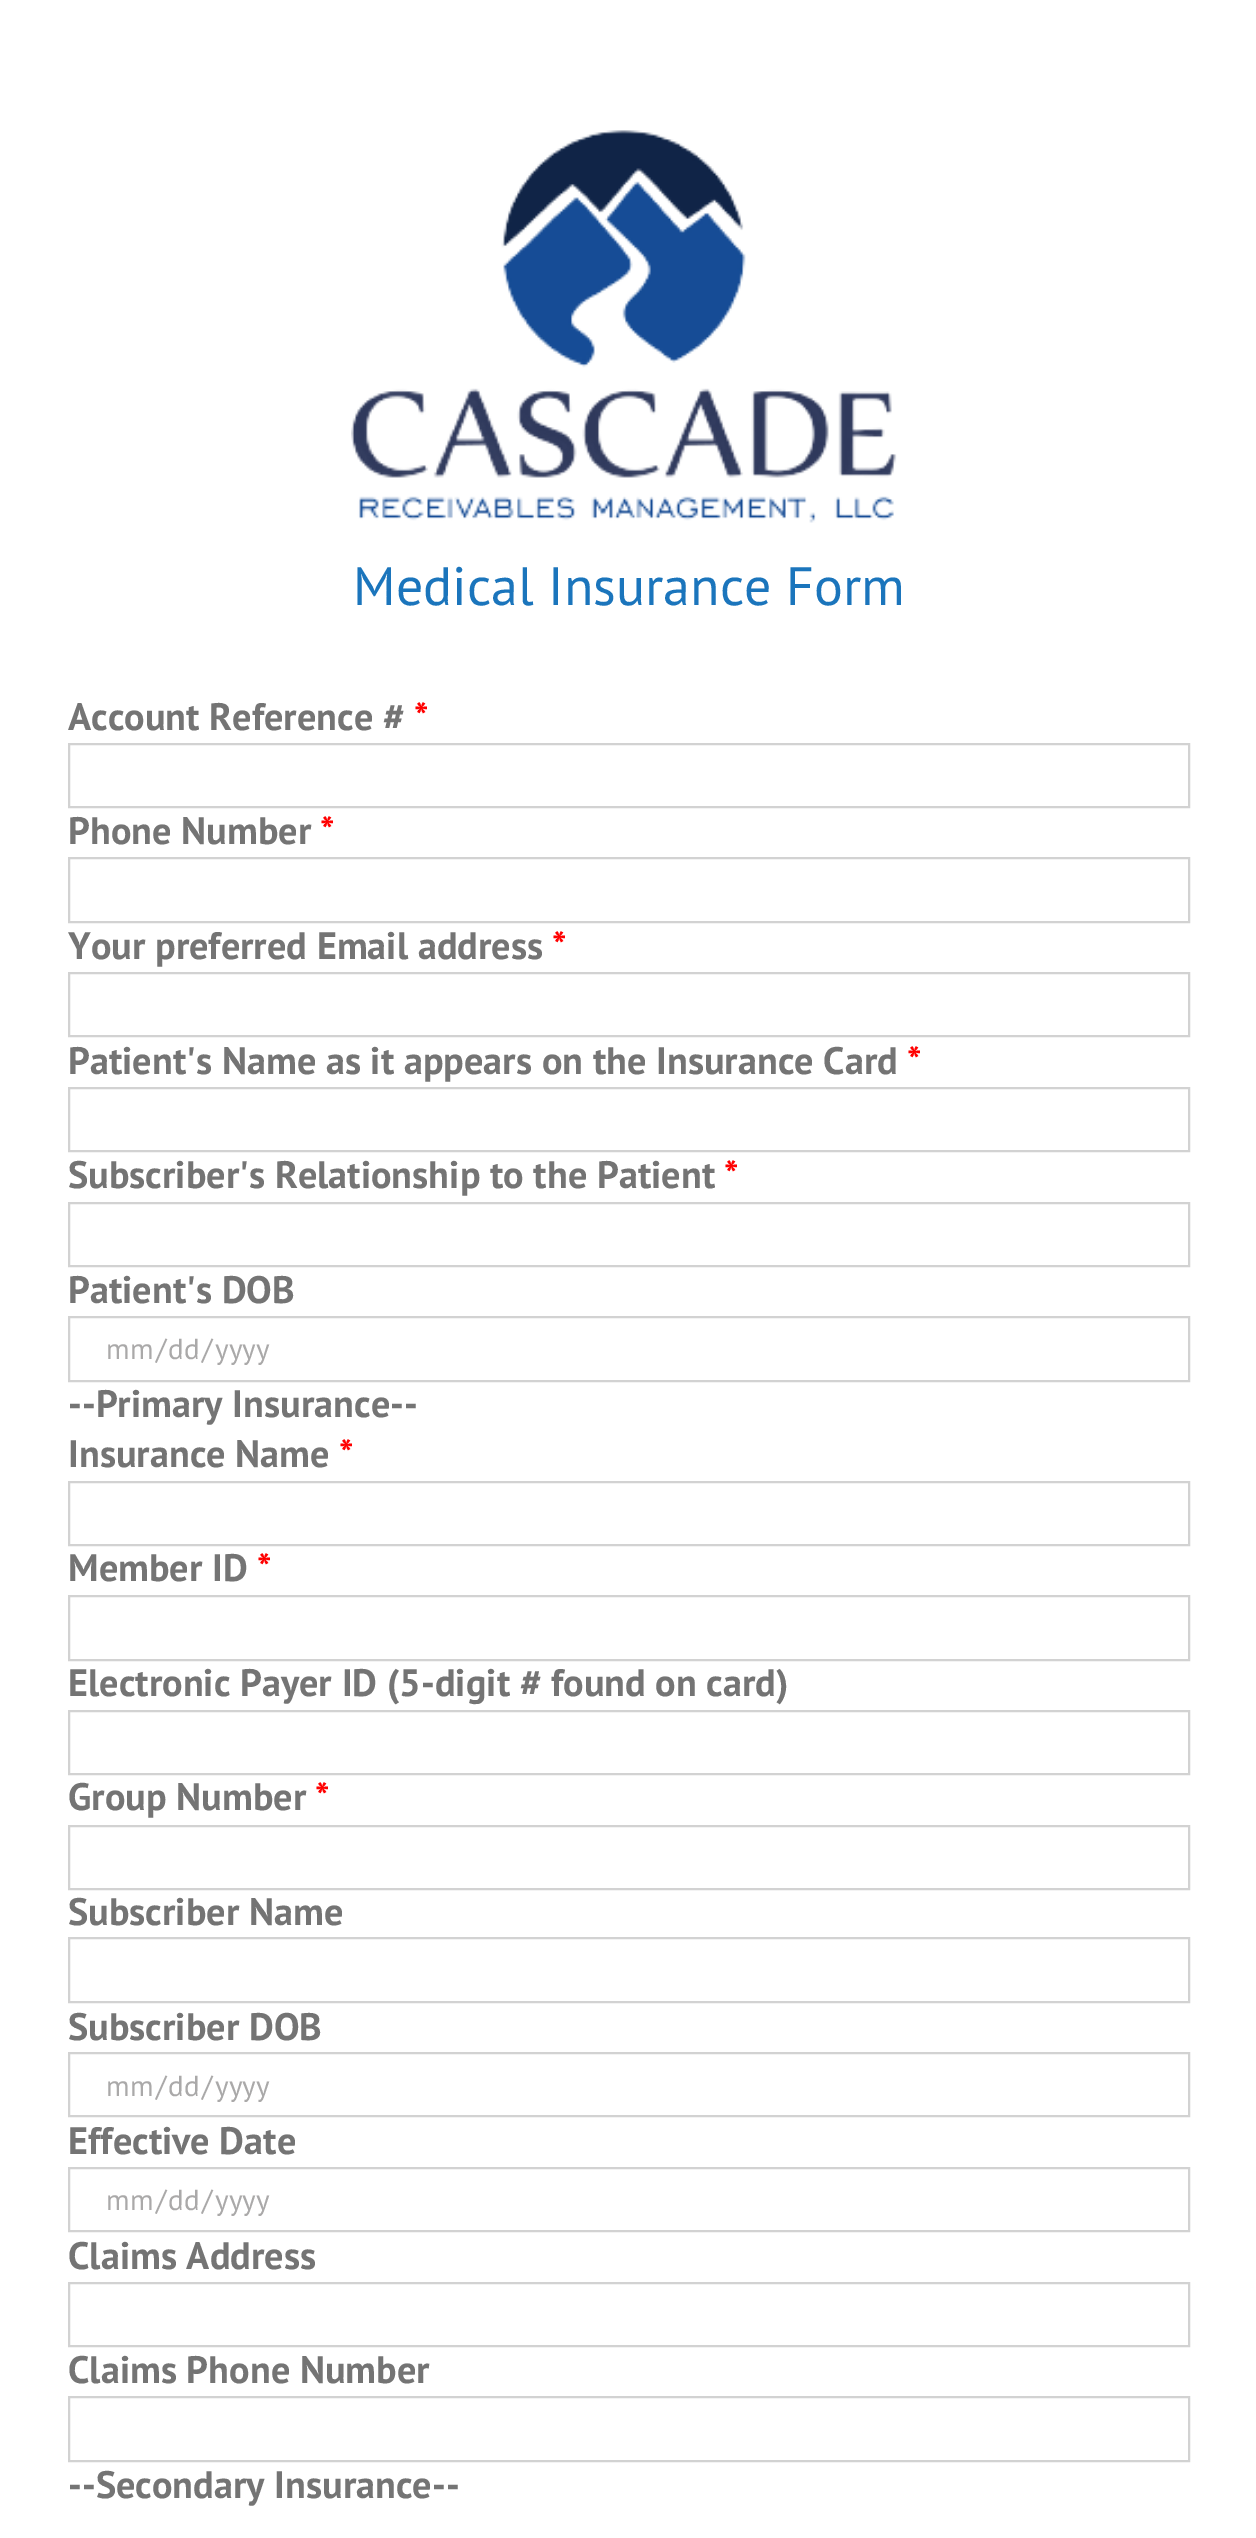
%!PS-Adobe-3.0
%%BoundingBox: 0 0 1256 2538
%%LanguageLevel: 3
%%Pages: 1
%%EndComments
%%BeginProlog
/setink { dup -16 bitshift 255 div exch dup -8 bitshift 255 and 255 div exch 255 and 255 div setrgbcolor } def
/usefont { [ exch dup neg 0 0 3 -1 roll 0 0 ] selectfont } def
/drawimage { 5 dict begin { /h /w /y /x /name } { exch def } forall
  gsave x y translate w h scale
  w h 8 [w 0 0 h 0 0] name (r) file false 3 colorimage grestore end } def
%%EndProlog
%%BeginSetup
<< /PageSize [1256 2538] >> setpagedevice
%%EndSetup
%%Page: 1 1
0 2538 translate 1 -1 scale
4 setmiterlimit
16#FFFFFF setink
0 0 1256 2538 rectfill
(img1.raw) 351 130 546 393 drawimage
/PTSans-Regular 54 usefont
16#1B75BC setink
353 605 moveto (Medical Insurance Form) show
/PTSans-Bold 38.25 usefont
16#747474 setink
68 730 moveto (Account Reference #) show
16#FF0000 setink
414 730 moveto (*) show
16#D2D2D2 setink
2 setlinewidth
69 744 1120 63 rectstroke
16#747474 setink
68 844 moveto (Phone Number) show
16#FF0000 setink
320 844 moveto (*) show
16#D2D2D2 setink
69 858 1120 64 rectstroke
16#747474 setink
68 959 moveto (Your preferred Email address) show
16#FF0000 setink
552 959 moveto (*) show
16#D2D2D2 setink
69 973 1120 63 rectstroke
16#747474 setink
68 1074 moveto (Patient's Name as it appears on the Insurance Card) show
16#FF0000 setink
907 1074 moveto (*) show
16#D2D2D2 setink
69 1088 1120 63 rectstroke
16#747474 setink
68 1188 moveto (Subscriber's Relationship to the Patient) show
16#FF0000 setink
724 1188 moveto (*) show
16#D2D2D2 setink
69 1203 1120 63 rectstroke
16#747474 setink
68 1303 moveto (Patient's DOB) show
16#D2D2D2 setink
69 1317 1120 64 rectstroke
/PTSans-Regular 29 usefont
16#AAA9A9 setink
[
    [(mm) 106 1359]
    [(/) 156 1359]
    [(dd) 168 1359]
    [(/) 202 1359]
    [(yyyy) 215 1359]
] { aload pop moveto show } forall
/PTSans-Bold 38.25 usefont
16#747474 setink
68 1417 moveto (--Primary Insurance--) show
68 1467 moveto (Insurance Name) show
16#FF0000 setink
339 1467 moveto (*) show
16#D2D2D2 setink
69 1482 1120 63 rectstroke
16#747474 setink
68 1581 moveto (Member ID) show
16#FF0000 setink
257 1581 moveto (*) show
16#D2D2D2 setink
69 1596 1120 64 rectstroke
16#747474 setink
68 1696 moveto (Electronic Payer ID \(5-digit # found on card\)) show
16#D2D2D2 setink
69 1711 1120 63 rectstroke
16#747474 setink
68 1810 moveto (Group Number) show
16#FF0000 setink
315 1810 moveto (*) show
16#D2D2D2 setink
69 1826 1120 63 rectstroke
16#747474 setink
68 1925 moveto (Subscriber Name) show
16#D2D2D2 setink
69 1938 1120 64 rectstroke
16#747474 setink
68 2040 moveto (Subscriber DOB) show
16#D2D2D2 setink
69 2053 1120 63 rectstroke
/PTSans-Regular 29 usefont
16#AAA9A9 setink
[
    [(mm) 106 2096]
    [(/) 156 2096]
    [(dd) 168 2096]
    [(/) 202 2096]
    [(yyyy) 215 2096]
] { aload pop moveto show } forall
/PTSans-Bold 38.25 usefont
16#747474 setink
68 2154 moveto (Effective Date) show
16#D2D2D2 setink
69 2168 1120 63 rectstroke
/PTSans-Regular 29 usefont
16#AAA9A9 setink
[
    [(mm) 106 2210]
    [(/) 156 2210]
    [(dd) 168 2210]
    [(/) 202 2210]
    [(yyyy) 215 2210]
] { aload pop moveto show } forall
/PTSans-Bold 38.25 usefont
16#747474 setink
68 2269 moveto (Claims Address) show
16#D2D2D2 setink
69 2283 1120 63 rectstroke
16#747474 setink
68 2383 moveto (Claims Phone Number) show
16#D2D2D2 setink
69 2397 1120 64 rectstroke
16#747474 setink
68 2498 moveto (--Secondary Insurance--) show
showpage
%%EOF
